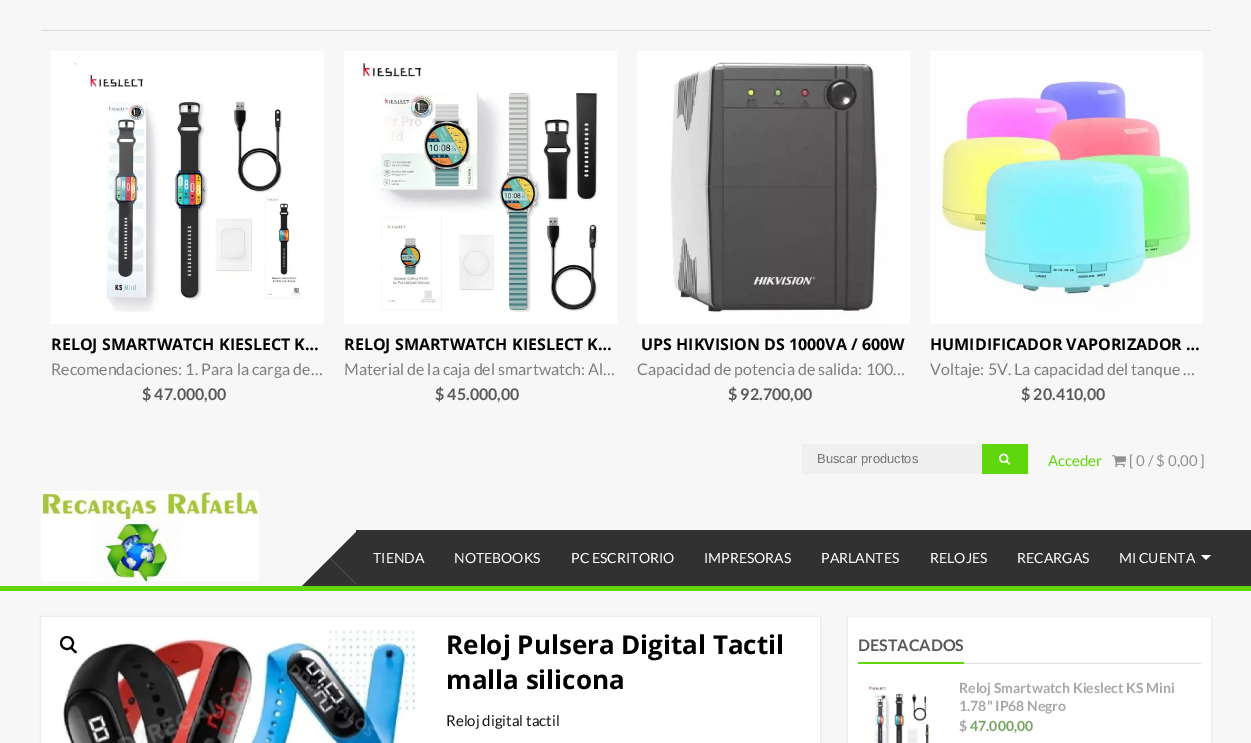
%!PS-Adobe-3.0
%%BoundingBox: 0 0 1251 743
%%LanguageLevel: 3
%%Pages: 1
%%EndComments
%%BeginProlog
/setink { dup -16 bitshift 255 div exch dup -8 bitshift 255 and 255 div exch 255 and 255 div setrgbcolor } def
/usefont { [ exch dup neg 0 0 3 -1 roll 0 0 ] selectfont } def
/setalpha { dup .setfillconstantalpha .setstrokeconstantalpha } def
/disc { newpath 0 360 arc closepath } def
/rrect { 5 dict begin { /r /h /w /y /x } { exch def } forall
  x r add y moveto x w add y 2 copy h add r arct x w add y h add x 1 index r arct
  x y h add x y r arct x y 2 copy exch w add exch r arct closepath end } def
/softshadow { 12 dict begin { /a /b /q /h /w /y /x } { exch def } forall gsave /was 0 def
  9 -2 -9 { dup b mul 4 div /e exch def 1 sub .425 mul 2.718 exch exp 1 add a .99 .min exch div /now exch def
    1 1 now sub 1 was sub div sub setalpha /was now def
    w h .min e 2 mul add 0 gt { x e sub y e sub w e 2 mul add h e 2 mul add
      q e add b .6 mul add w h .min 2 div e add .min 0 .max rrect fill } if } for grestore end } def
/drawimage { 5 dict begin { /h /w /y /x /name } { exch def } forall
  gsave x y translate w h scale
  w h 8 [w 0 0 h 0 0] name (r) file false 3 colorimage grestore end } def
%%EndProlog
%%BeginSetup
<< /PageSize [1251 743] /PageUsesTransparency true >> setpagedevice
%%EndSetup
%%Page: 1 1
0 .pushpdf14devicefilter
0 743 translate 1 -1 scale
4 setmiterlimit
16#F7F7F7 setink
0 0 1251 743 rectfill
16#DDDDDD setink
41 30 1170 1 rectfill
(img1.raw) 51 51 273 273 drawimage
/OpenSans-Bold 16 usefont
16#000000 setink
51 350 moveto (RELOJ SMARTWATCH KIESLECT K…) show
/Lato-Regular 16 usefont
16#7F7E7E setink
51 375 moveto (Recomendaciones: 1. Para la carga de…) show
/Lato-Bold 16 usefont
16#595959 setink
142 400 moveto ($ 47.000,00) show
(img2.raw) 344 51 273 273 drawimage
/OpenSans-Bold 16 usefont
16#000000 setink
344 350 moveto (RELOJ SMARTWATCH KIESLECT K…) show
/Lato-Regular 16 usefont
16#7F7E7E setink
344 375 moveto (Material de la caja del smartwatch: Al…) show
/Lato-Bold 16 usefont
16#595959 setink
435 400 moveto ($ 45.000,00) show
(img3.raw) 637 51 273 273 drawimage
/OpenSans-Bold 16 usefont
16#000000 setink
641 350 moveto (UPS HIKVISION DS 1000VA / 600W) show
/Lato-Regular 16 usefont
16#7F7E7E setink
637 375 moveto (Capacidad de potencia de salida: 100…) show
/Lato-Bold 16 usefont
16#595959 setink
728 400 moveto ($ 92.700,00) show
(img4.raw) 930 51 273 273 drawimage
/OpenSans-Bold 16 usefont
16#000000 setink
930 350 moveto (HUMIDIFICADOR VAPORIZADOR …) show
/Lato-Regular 16 usefont
16#7F7E7E setink
930 375 moveto (Voltaje: 5V. La capacidad del tanque …) show
/Lato-Bold 16 usefont
16#595959 setink
1021 400 moveto ($ 20.410,00) show
16#EFEFEF setink
802 444 180 30 rectfill
/LiberationSans-Regular 13 usefont
16#757575 setink
817 463 moveto (Buscar productos) show
16#60D60C setink
982 444 46 30 rectfill
(img5.raw) 999 453 12 12 drawimage
/Lato-Regular 15 usefont
1048 466 moveto (Acceder) show
(img6.raw) 1112 455 14 12 drawimage
16#919191 setink
1129 466 moveto ([ 0 / $ 0,00 ]) show
16#60D60C setink
0 586 1251 5 rectfill
16#313131 setink
356 530 895 56 rectfill
(img7.raw) 41 491 218 90 drawimage
358 530 moveto 358 586 lineto 330 558 lineto closepath fill
358 586 moveto 302 586 lineto 330 558 lineto closepath fill
/Lato-Regular 14 usefont
16#FFFFFF setink
[
    [(TIENDA) 373 563]
    [(NOTEBOOKS) 454 563]
    [(PC ESCRITORIO) 571 563]
    [(IMPRESORAS) 704 563]
    [(PARLANTES) 821 563]
    [(RELOJES) 930 563]
    [(RECARGAS) 1017 563]
    [(MI CUENTA) 1119 563]
] { aload pop moveto show } forall
1201 555 moveto 1211 555 lineto 1206 560 lineto closepath fill
16#000000 setink
40 616 781 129 0 0.5 0.05 softshadow
16#FFFFFF setink
41 617 779 126 rectfill
(img8.raw) 63 629 352 114 drawimage
16#000000 setink
2 setlinewidth
67 643 6 disc stroke
70.5 647 moveto 72 646 73.5 648.5 74 649.5 curveto 75 650 77.5 651.5 76.5 653 curveto 75 654 73.5 651.5 73 651 curveto 72 650 69.5 648.5 70.5 647 curveto closepath fill
/OpenSans-Bold 26 usefont
446 654 moveto (Reloj Pulsera Digital Tactil) show
446 689 moveto (malla silicona) show
/Lato-Regular 15 usefont
16#141414 setink
446 726 moveto (Reloj digital tactil) show
16#000000 setink
847 617 365 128 0 0.5 0.05 softshadow
16#FFFFFF setink
848 617 363 126 rectfill
16#60D60C setink
858 662 106 2 rectfill
/Lato-Bold 16 usefont
16#595959 setink
858 651 moveto (DESTACADOS) show
16#DDDDDD setink
964 663 237 1 rectfill
(img9.raw) 864 682 66 61 drawimage
/Lato-Bold 14 usefont
16#A8A7A7 setink
[
    [(Reloj Smartwatch Kieslect KS Mini) 959 693]
    [(1.78" IP68 Negro) 959 711]
    [($) 959 731]
] { aload pop moveto show } forall
16#77A464 setink
970 731 moveto (47.000,00) show
.poppdf14devicefilter showpage
%%EOF
